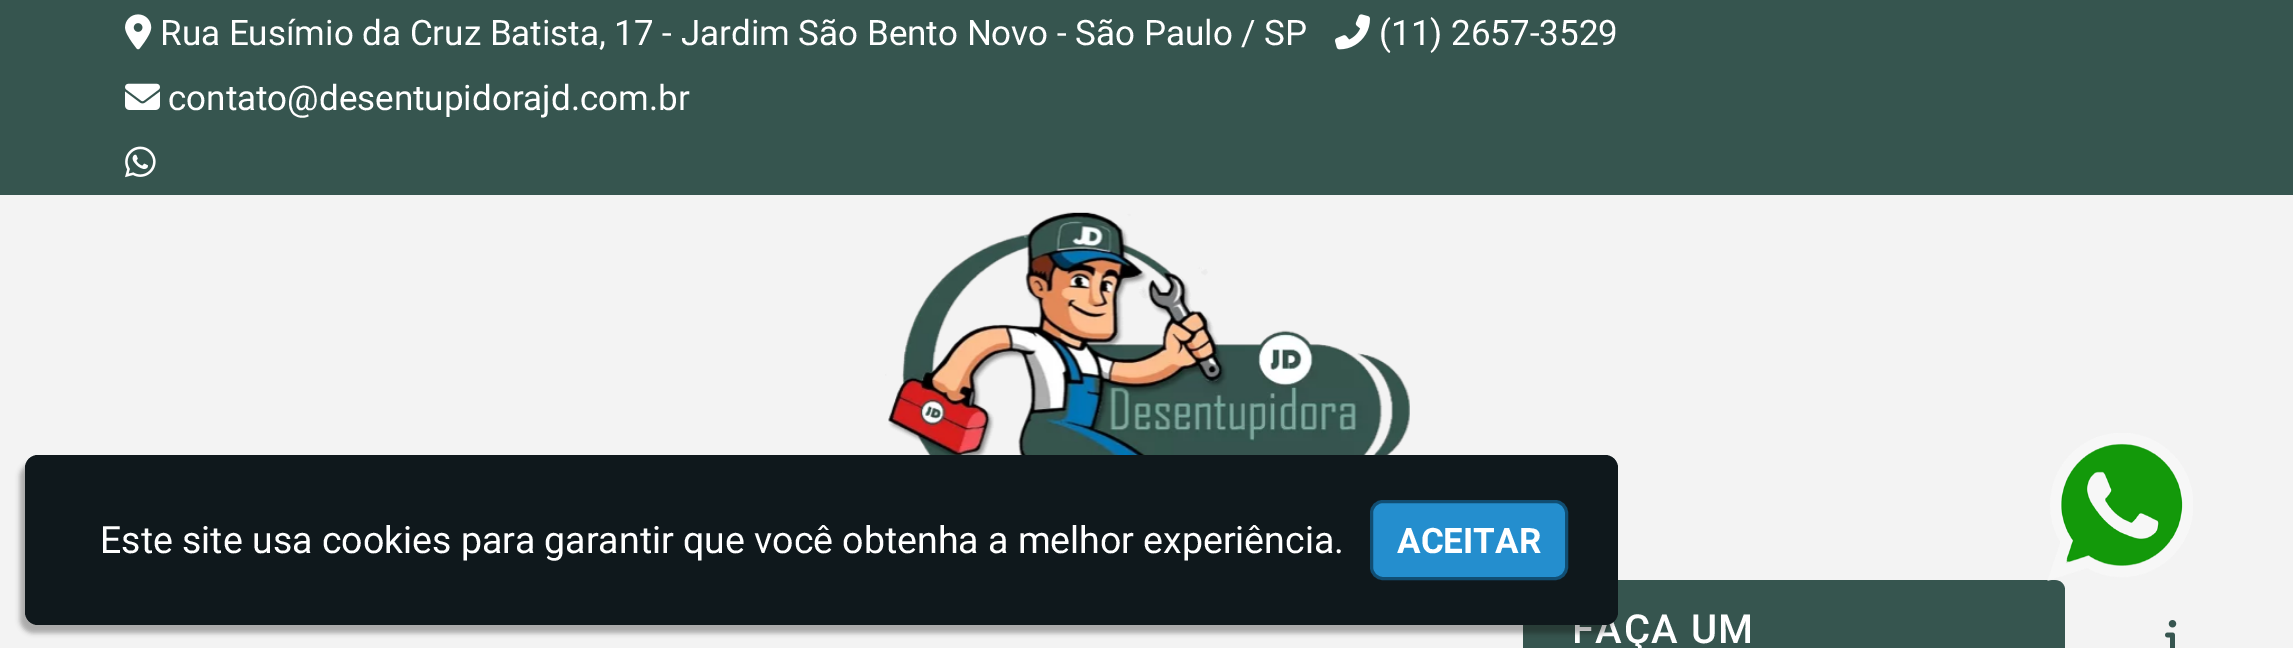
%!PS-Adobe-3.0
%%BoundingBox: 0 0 2293 648
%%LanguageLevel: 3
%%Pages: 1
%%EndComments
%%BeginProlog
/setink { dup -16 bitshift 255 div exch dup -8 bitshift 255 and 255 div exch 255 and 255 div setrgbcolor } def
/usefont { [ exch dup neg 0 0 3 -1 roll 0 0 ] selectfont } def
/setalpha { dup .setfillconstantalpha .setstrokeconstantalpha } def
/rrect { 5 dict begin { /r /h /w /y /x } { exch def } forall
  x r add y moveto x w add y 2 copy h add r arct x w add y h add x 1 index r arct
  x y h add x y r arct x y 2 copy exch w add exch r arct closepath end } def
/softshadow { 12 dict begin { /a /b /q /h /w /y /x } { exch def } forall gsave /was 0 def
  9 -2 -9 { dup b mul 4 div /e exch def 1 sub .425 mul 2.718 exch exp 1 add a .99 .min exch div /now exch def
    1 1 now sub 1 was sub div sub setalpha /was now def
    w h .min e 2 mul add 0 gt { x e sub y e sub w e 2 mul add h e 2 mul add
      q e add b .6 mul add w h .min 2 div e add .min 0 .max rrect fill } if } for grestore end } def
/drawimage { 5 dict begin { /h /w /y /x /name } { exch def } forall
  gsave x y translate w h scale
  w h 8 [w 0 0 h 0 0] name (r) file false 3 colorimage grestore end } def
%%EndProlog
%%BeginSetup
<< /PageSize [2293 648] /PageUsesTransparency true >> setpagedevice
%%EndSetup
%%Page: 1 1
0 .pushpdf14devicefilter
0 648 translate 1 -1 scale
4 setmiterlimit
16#F3F3F3 setink
0 0 2293 648 rectfill
16#36554F setink
0 0 2293 195 rectfill
(img1.raw) 125 14 27 36 drawimage
/Roboto-Regular 35 usefont
16#FFFFFF setink
160 45 moveto (Rua Eusímio da Cruz Batista, 17 - Jardim São Bento Novo - São Paulo / SP) show
(img2.raw) 1335 14 35 36 drawimage
1379 45 moveto (\(11\) 2657-3529) show
(img3.raw) 125 83 35 27 drawimage
168 110 moveto (contato@desentupidorajd.com.br) show
(img4.raw) 125 146 31 32 drawimage
(img5.raw) 885 212 525 243 drawimage
16#36554F setink
1523 580 542 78 10 rrect fill
/Roboto-Medium 40 usefont
16#FFFFFF setink
1572 643 moveto 1.5 0 (FAÇA UM) ashow
(img6.raw) 2165 620 12 28 drawimage
16#000000 setink
20 463 1593 170 13 2.5 0.3 softshadow
16#0F181C setink
25 455 1593 170 13 rrect fill
/Roboto-Regular 37.5 usefont
16#FFFFFF setink
100 553 moveto (Este site usa cookies para garantir que você obtenha a melhor experiência.) show
16#248ECE setink
1371.5 501.5 195 77 11.5 rrect gsave fill grestore
16#114E73 setink
3 setlinewidth
stroke
/Roboto-Bold 35 usefont
16#FFFFFF setink
1397 553 moveto (ACEITAR) show
(img7.raw) 2047 433 146 148 drawimage
.poppdf14devicefilter showpage
%%EOF
